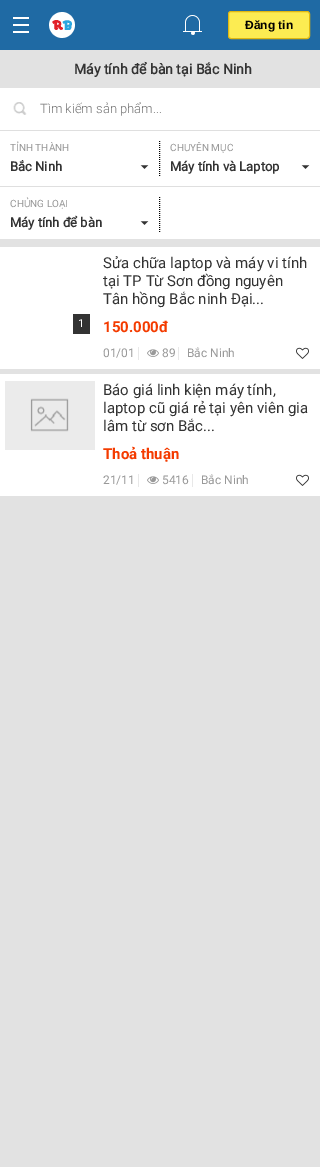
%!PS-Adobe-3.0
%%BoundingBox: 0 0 320 1167
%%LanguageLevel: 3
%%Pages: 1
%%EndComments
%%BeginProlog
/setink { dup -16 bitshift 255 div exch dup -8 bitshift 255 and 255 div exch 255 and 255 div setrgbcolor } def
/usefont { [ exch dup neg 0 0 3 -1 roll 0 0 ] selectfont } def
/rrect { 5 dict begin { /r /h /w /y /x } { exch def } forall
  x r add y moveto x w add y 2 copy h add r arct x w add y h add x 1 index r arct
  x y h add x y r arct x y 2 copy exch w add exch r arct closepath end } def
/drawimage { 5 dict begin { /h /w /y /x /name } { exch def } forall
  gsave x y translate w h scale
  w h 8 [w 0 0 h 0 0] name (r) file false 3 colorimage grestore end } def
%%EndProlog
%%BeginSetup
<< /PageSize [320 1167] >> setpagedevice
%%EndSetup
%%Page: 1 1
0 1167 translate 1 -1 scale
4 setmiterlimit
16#E2E2E2 setink
0 0 320 1167 rectfill
16#1F6AA4 setink
0 0 320 50 rectfill
(img1.raw) 13 17 16 16 drawimage
(img2.raw) 49 12 26 26 drawimage
(img3.raw) 183 15 19 20 drawimage
16#FCEC52 setink
228.5 11.5 81 27 2.5 rrect gsave fill grestore
16#E1B80F setink
stroke
/LiberationSans-Bold 12 usefont
16#000000 setink
245 29 moveto (Đăng tin) show
/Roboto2-Bold 14 usefont
16#333333 setink
74 74 moveto (Máy tính để bàn tại Bắc Ninh) show
16#FFFFFF setink
0 88 320 42 rectfill
16#DFDFDF setink
0 130 320 1 rectfill
(img4.raw) 13 102 14 13 drawimage
/Roboto-Light 13 usefont
16#757575 setink
40 113 moveto (Tìm kiếm sản phẩm...) show
16#FFFFFF setink
0 131 320 108 rectfill
16#DFDFDF setink
0 186 320 1 rectfill
(img5.raw) 140 165 9 4 drawimage
16#000000 setink
[1 1] 0 setdash
159.5 141 moveto 159.5 176 lineto stroke
/Roboto-Regular 10 usefont
16#999999 setink
10 151 moveto (TỈNH THÀNH) show
/Roboto2-Bold 13 usefont
16#333333 setink
10 171 moveto (Bắc Ninh) show
(img5.raw) 301 165 9 4 drawimage
/Roboto-Regular 10 usefont
16#999999 setink
170 151 moveto (CHUYÊN MỤC) show
/Roboto2-Bold 13 usefont
16#333333 setink
170 171 moveto (Máy tính và Laptop) show
(img5.raw) 140 221 9 4 drawimage
16#000000 setink
159.5 197 moveto 159.5 232 lineto stroke
/Roboto-Regular 10 usefont
16#999999 setink
10 207 moveto (CHỦNG LOẠI) show
/Roboto2-Bold 13 usefont
16#333333 setink
10 227 moveto (Máy tính để bàn) show
16#FFFFFF setink
0 247 320 122 rectfill
16#333333 setink
73 314 17 20 rectfill
/Roboto-Regular 11 usefont
16#FFFFFF setink
78 327 moveto (1) show
/Roboto-Regular 15 usefont
16#333333 setink
[
    [(Sửa chữa laptop và máy vi tính) 103 268]
    [(tại TP Từ Sơn đồng nguyên) 103 286]
    [(Tân hồng Bắc ninh Đại...) 103 304]
] { aload pop moveto show } forall
/Roboto-Bold 15 usefont
16#F43B00 setink
103 332 moveto (150.000đ) show
/Roboto-Regular 12 usefont
16#999999 setink
103 357 moveto (01/01) show
16#E8E8E8 setink
138 347 1 13 rectfill
178 347 1 13 rectfill
(img6.raw) 147 349 12 8 drawimage
16#999999 setink
162 357 moveto (89) show
187 357 moveto (Bắc Ninh) show
(img7.raw) 296 347 13 12 drawimage
16#FFFFFF setink
0 374 320 122 rectfill
(img8.raw) 5 381 90 69 drawimage
/Roboto-Regular 15 usefont
16#333333 setink
[
    [(Báo giá linh kiện máy tính,) 103 395]
    [(laptop cũ giá rẻ tại yên viên gia) 103 413]
    [(lâm từ sơn Bắc...) 103 431]
] { aload pop moveto show } forall
/Roboto-Bold 15 usefont
16#F43B00 setink
103 459 moveto (Thoả thuận) show
/Roboto-Regular 12 usefont
16#999999 setink
103 484 moveto (21/11) show
16#E8E8E8 setink
138 474 1 13 rectfill
192 474 1 13 rectfill
(img6.raw) 147 476 12 8 drawimage
16#999999 setink
162 484 moveto (5416) show
201 484 moveto (Bắc Ninh) show
(img7.raw) 296 474 13 12 drawimage
showpage
%%EOF
